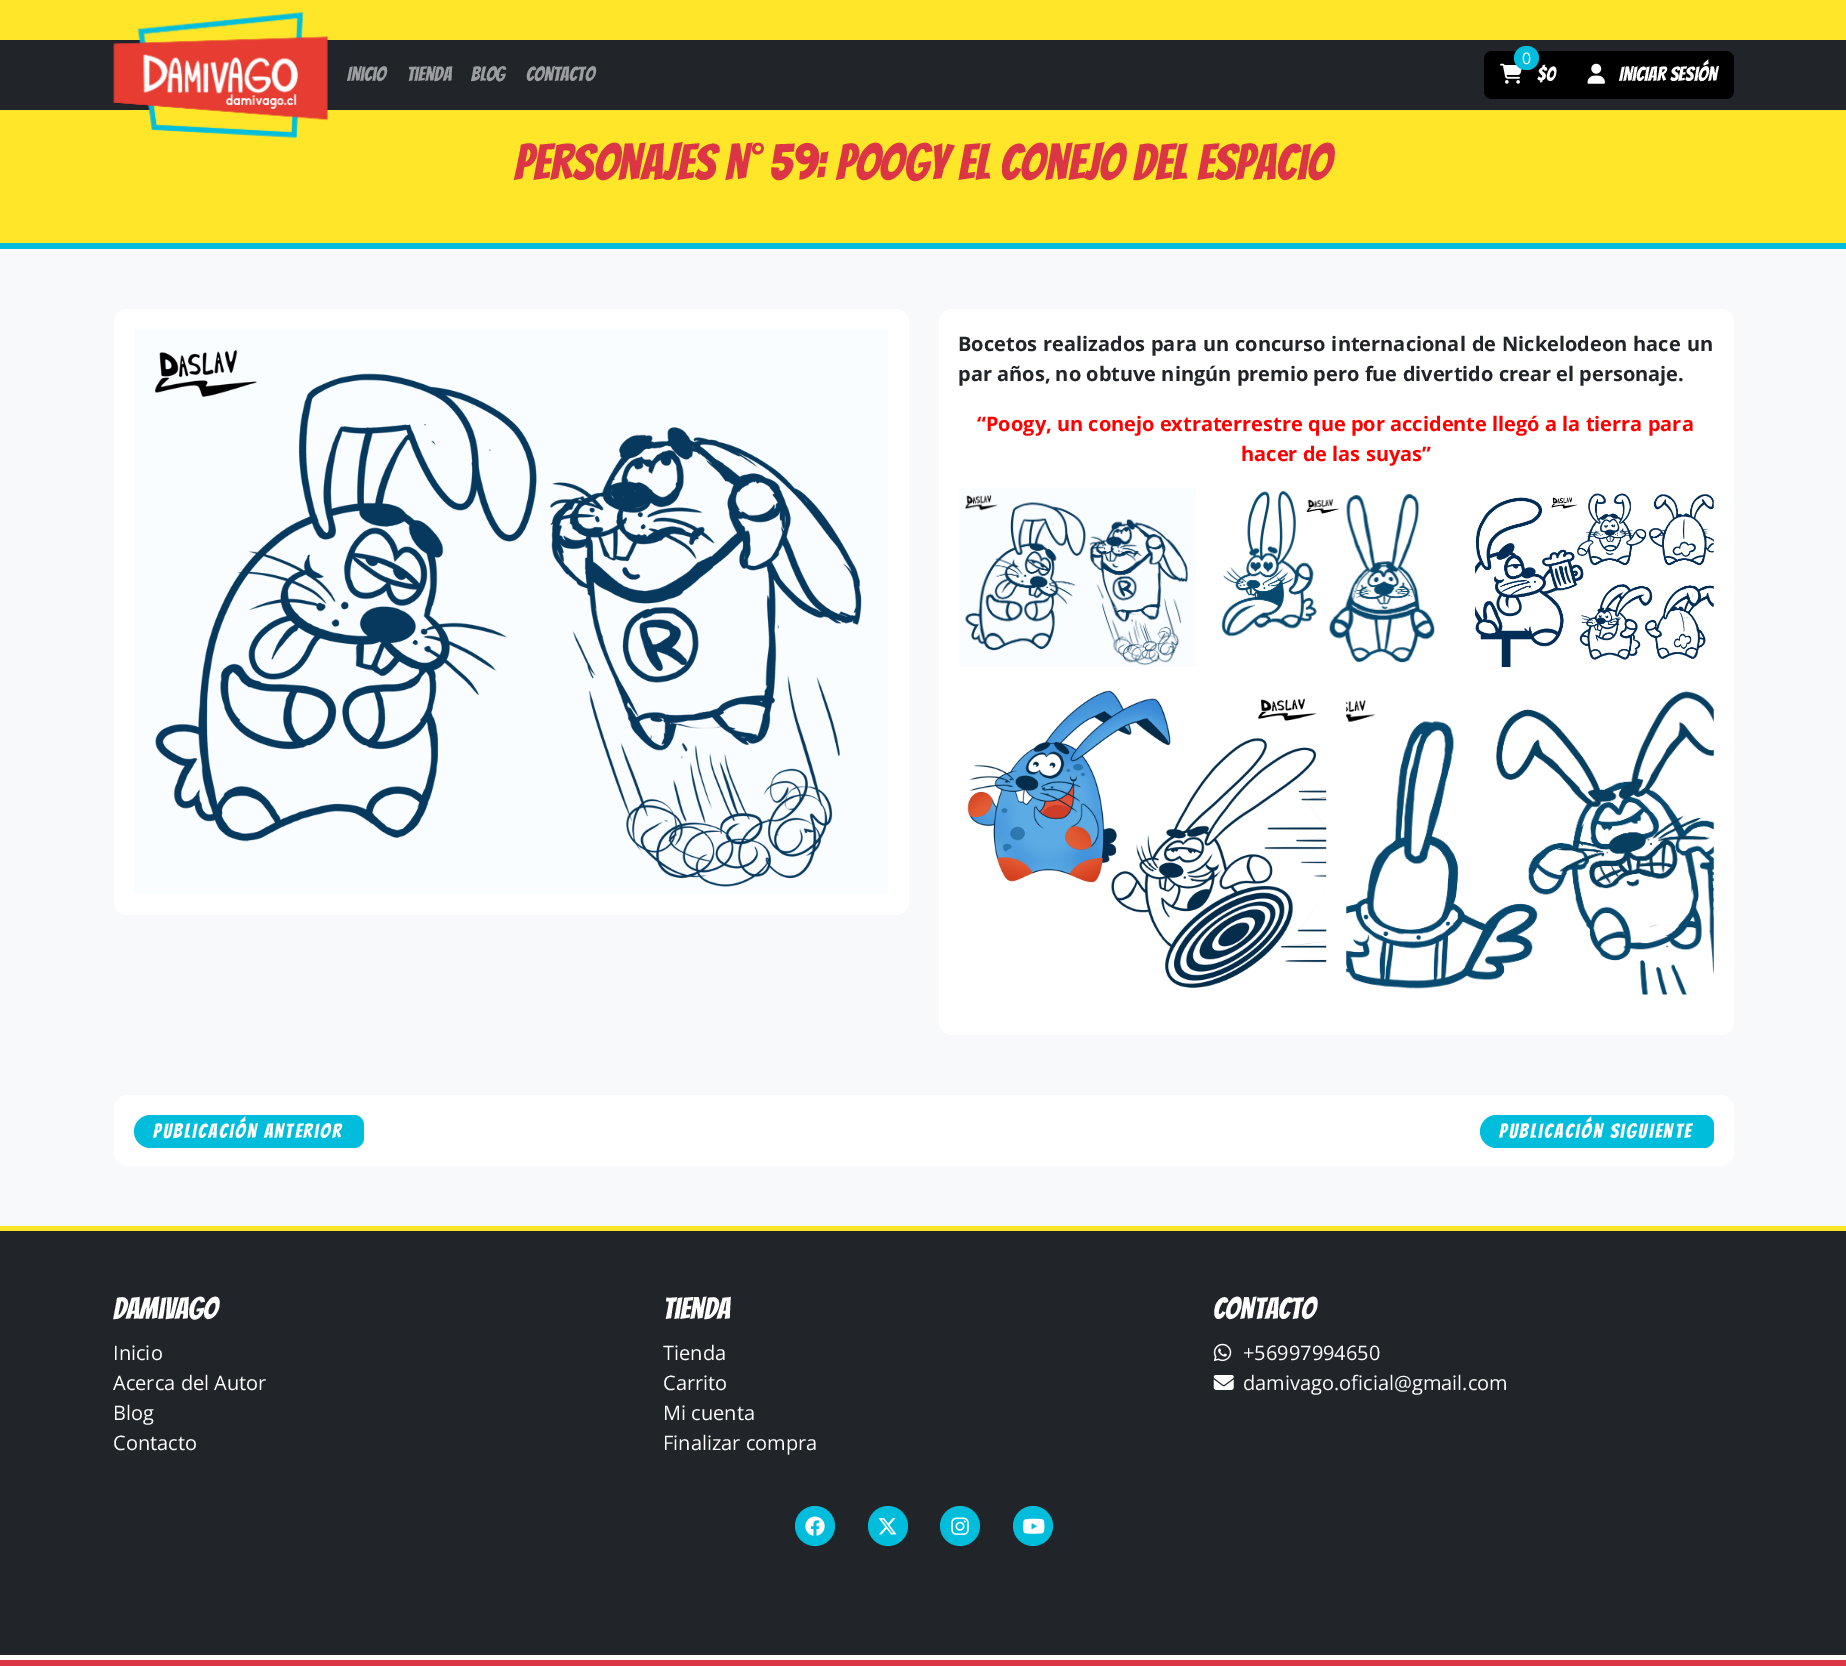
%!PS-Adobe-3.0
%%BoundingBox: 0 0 1846 1666
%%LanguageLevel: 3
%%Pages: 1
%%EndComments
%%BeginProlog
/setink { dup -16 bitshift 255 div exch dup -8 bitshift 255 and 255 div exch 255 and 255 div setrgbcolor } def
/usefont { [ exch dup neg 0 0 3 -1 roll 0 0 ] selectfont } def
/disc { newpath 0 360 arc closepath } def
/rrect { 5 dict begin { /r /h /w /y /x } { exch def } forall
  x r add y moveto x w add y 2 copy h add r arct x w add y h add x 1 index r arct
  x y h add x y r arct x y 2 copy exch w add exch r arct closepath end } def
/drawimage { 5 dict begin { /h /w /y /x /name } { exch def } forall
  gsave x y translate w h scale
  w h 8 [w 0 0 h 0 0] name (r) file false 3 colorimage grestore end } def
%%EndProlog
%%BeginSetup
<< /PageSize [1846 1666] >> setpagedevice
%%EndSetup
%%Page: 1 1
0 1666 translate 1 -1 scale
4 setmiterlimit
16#F8F9FA setink
0 0 1846 1666 rectfill
16#FFE629 setink
0 0 1846 243 rectfill
16#212529 setink
0 40 1846 70 rectfill
(img1.raw) 113 12 215 126 drawimage
/Bangers-Regular 20 usefont
16#9B9D9F setink
[
    [(Inicio) 347 81]
    [(Tienda) 407 81]
    [(Blog) 471 81]
    [(Contacto) 526 81]
] { aload pop moveto show } forall
16#000000 setink
1484 51 250 48 8 rrect fill
(img2.raw) 1500 63 22 21 drawimage
16#FFFFFF setink
1537 81 moveto ($0) show
16#00BEDB setink
1514 46 25 24 12 rrect fill
/OpenSans-Regular 16 usefont
16#FFFFFF setink
1522 64 moveto (0) show
(img3.raw) 1587 63 18 21 drawimage
/Bangers-Regular 20 usefont
1619 81 moveto (Iniciar sesión) show
16#00BEDB setink
0 243 1846 6 rectfill
/Bangers-Regular 50 usefont
16#DC3545 setink
514 180 moveto (Personajes N° 59: Poogy el Conejo del Espacio) show
16#FFFFFF setink
114 309 795 606 13 rrect fill
(img4.raw) 134 328 755 566 drawimage
939 309 795 726 13 rrect fill
/OpenSans-Bold 20 usefont
16#212529 setink
958 351 moveto 0.75 0 32 (Bocetos realizados para un concurso internacional de Nickelodeon hace un) widthshow
958 381 moveto (par años, no obtuve ningún premio pero fue divertido crear el personaje.) show
16#FF0000 setink
977 431 moveto (“Poogy, un conejo extraterrestre que por accidente llegó a la tierra para) show
1241 461 moveto (hacer de las suyas”) show
(img5.raw) 959 488 237 179 drawimage
(img6.raw) 1221 490 214 173 drawimage
(img7.raw) 1475 493 239 174 drawimage
(img8.raw) 967 690 360 298 drawimage
(img9.raw) 1346 691 368 304 drawimage
16#FFFFFF setink
114 1095 1620 71 13 rrect fill
16#00BEDB setink
150.5 1115 moveto 344 1115 lineto 344 1148 lineto 150.5 1148 lineto 141.5 1148 134 1140.5 134 1131.5 curveto 134 1122.5 141.5 1115 150.5 1115 curveto closepath fill
/Bangers-Regular 20 usefont
16#FFFFFF setink
153 1138 moveto 2 0 (Publicación anterior) ashow
16#00BEDB setink
344 1115 moveto 354 1115 lineto 359.5 1115 364 1119.5 364 1125 curveto 364 1138 lineto 364 1143.5 359.5 1148 354 1148 curveto 344 1148 lineto closepath fill
1496.5 1115 moveto 1694 1115 lineto 1694 1148 lineto 1496.5 1148 lineto 1487.5 1148 1480 1140.5 1480 1131.5 curveto 1480 1122.5 1487.5 1115 1496.5 1115 curveto closepath fill
16#FFFFFF setink
1499 1138 moveto 2 0 (Publicación siguiente) ashow
16#00BEDB setink
1694 1115 moveto 1704 1115 lineto 1709.5 1115 1714 1119.5 1714 1125 curveto 1714 1138 lineto 1714 1143.5 1709.5 1148 1704 1148 curveto 1694 1148 lineto closepath fill
16#212529 setink
0 1231 1846 424 rectfill
16#FFE629 setink
0 1226 1846 5 rectfill
/Bangers-Regular 30 usefont
16#FFFFFF setink
113 1319 moveto (Damivago) show
/OpenSans-Regular 20 usefont
[
    [(Inicio) 113 1360]
    [(Acerca del Autor) 113 1390]
    [(Blog) 113 1420]
    [(Contacto) 113 1450]
] { aload pop moveto show } forall
/Bangers-Regular 30 usefont
663 1319 moveto (Tienda) show
/OpenSans-Regular 20 usefont
[
    [(Tienda) 663 1360]
    [(Carrito) 663 1390]
    [(Mi cuenta) 663 1420]
    [(Finalizar compra) 663 1450]
] { aload pop moveto show } forall
/Bangers-Regular 30 usefont
1213 1319 moveto (Contacto) show
(img10.raw) 1213 1343 19 19 drawimage
/OpenSans-Regular 20 usefont
1243 1360 moveto (+56997994650) show
(img11.raw) 1213 1375 21 15 drawimage
1243 1390 moveto (damivago.oficial@gmail.com) show
16#00BEDB setink
815 1526 20 disc fill
(img12.raw) 805 1516 20 20 drawimage
888 1526 20 disc fill
(img13.raw) 878 1518 19 17 drawimage
960 1526 20 disc fill
(img14.raw) 951 1517 18 18 drawimage
1033 1526 20 disc fill
(img15.raw) 1023 1518 22 16 drawimage
16#DC3545 setink
0 1660 1846 6 rectfill
16#FFFFFF setink
0 1655 1846 5 rectfill
showpage
%%EOF
